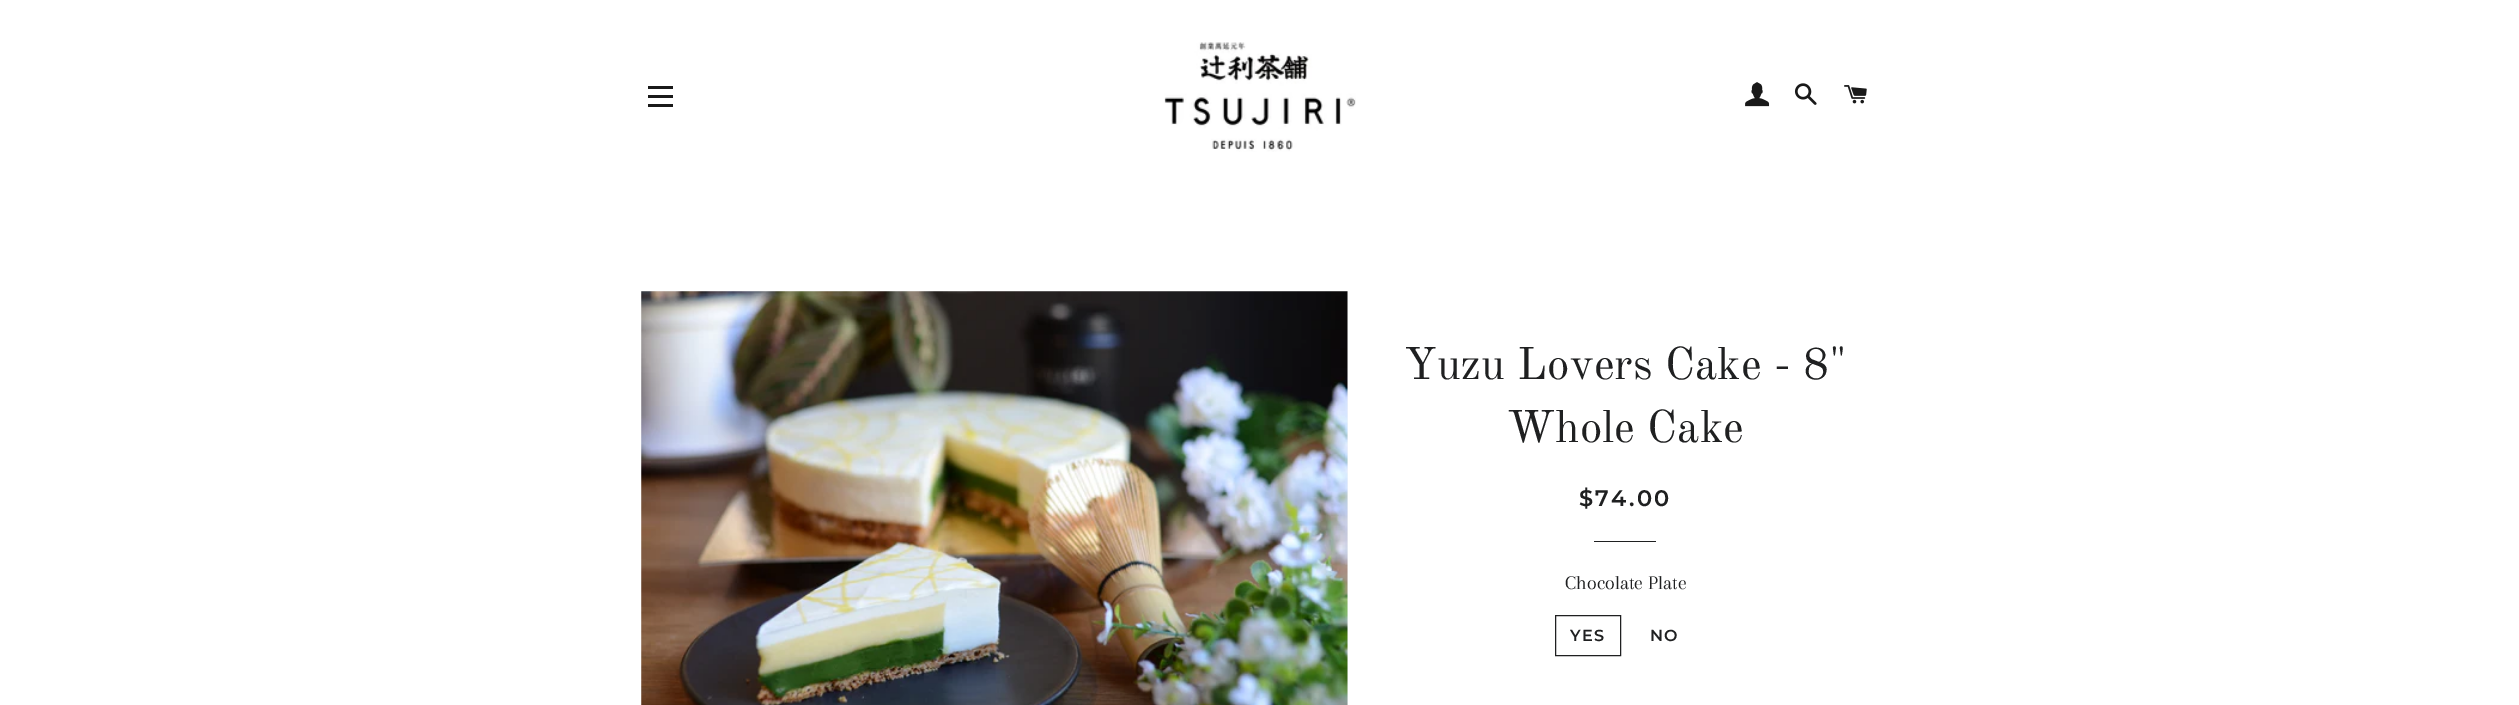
%!PS-Adobe-3.0
%%BoundingBox: 0 0 2519 705
%%LanguageLevel: 3
%%Pages: 1
%%EndComments
%%BeginProlog
/setink { dup -16 bitshift 255 div exch dup -8 bitshift 255 and 255 div exch 255 and 255 div setrgbcolor } def
/usefont { [ exch dup neg 0 0 3 -1 roll 0 0 ] selectfont } def
/drawimage { 5 dict begin { /h /w /y /x /name } { exch def } forall
  gsave x y translate w h scale
  w h 8 [w 0 0 h 0 0] name (r) file false 3 colorimage grestore end } def
%%EndProlog
%%BeginSetup
<< /PageSize [2519 705] >> setpagedevice
%%EndSetup
%%Page: 1 1
0 705 translate 1 -1 scale
4 setmiterlimit
16#FFFFFF setink
0 0 2519 705 rectfill
[
    [648 86 25 3 16#191919]
    [648 95 25 3 16#191919]
    [648 104 25 3 16#191919]
] { aload pop setink rectfill } forall
(img1.raw) 1164 42 192 110 drawimage
(img2.raw) 1745 82 25 25 drawimage
(img3.raw) 1794 83 23 22 drawimage
(img4.raw) 1844 85 23 19 drawimage
16#F6F6F6 setink
641 291 707 414 rectfill
(img5.raw) 641 291 707 414 drawimage
/OldStandardTT-Regular 45 usefont
16#1F2021 setink
1404 379 moveto (Yuzu Lovers Cake - 8") show
1507 442 moveto (Whole Cake) show
/Montserrat-SemiBold 22.5 usefont
1579 506 moveto 2.25 0 ($74.00) ashow
1594 541 62 1 rectfill
/Arapey-Regular 20 usefont
1565 589 moveto (Chocolate Plate) show
1555.5 615.5 65 40 rectstroke
/Montserrat-SemiBold 16 usefont
1570 641 moveto 1.5 0 (YES) ashow
1650 641 moveto 1.5 0 (NO) ashow
showpage
%%EOF
